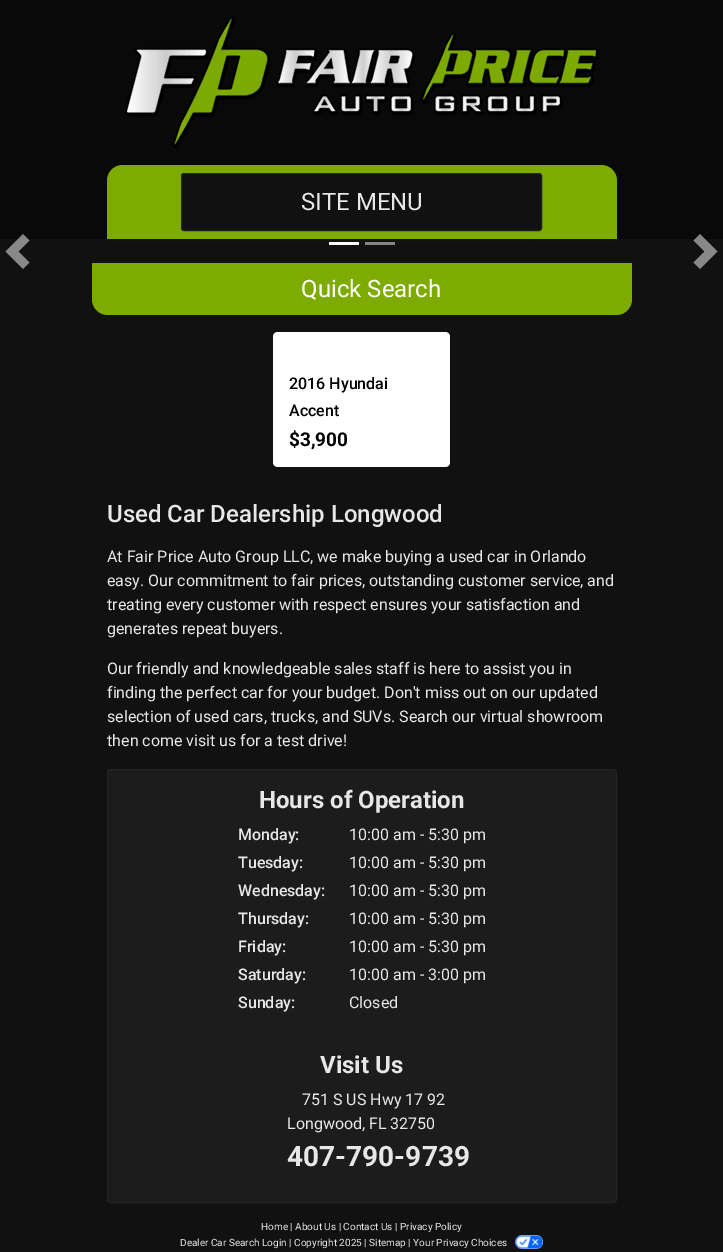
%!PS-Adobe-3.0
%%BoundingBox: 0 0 723 1252
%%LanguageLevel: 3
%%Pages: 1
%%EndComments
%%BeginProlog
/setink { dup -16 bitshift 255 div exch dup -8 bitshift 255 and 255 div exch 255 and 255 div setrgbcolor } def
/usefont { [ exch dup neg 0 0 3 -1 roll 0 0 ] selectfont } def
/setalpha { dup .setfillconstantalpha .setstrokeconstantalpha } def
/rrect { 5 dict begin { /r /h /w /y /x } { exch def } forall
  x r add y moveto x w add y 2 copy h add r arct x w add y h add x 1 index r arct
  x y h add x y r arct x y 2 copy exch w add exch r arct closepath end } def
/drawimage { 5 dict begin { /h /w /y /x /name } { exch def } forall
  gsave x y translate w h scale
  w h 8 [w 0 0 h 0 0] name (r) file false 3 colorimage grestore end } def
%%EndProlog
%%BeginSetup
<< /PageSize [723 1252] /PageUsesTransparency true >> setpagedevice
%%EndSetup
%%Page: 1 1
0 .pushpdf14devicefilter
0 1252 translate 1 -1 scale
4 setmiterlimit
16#111111 setink
0 0 723 1252 rectfill
16#090909 setink
0 0 723 239 rectfill
(img1.raw) 125 17 474 131 drawimage
16#7DAB00 setink
123 165 moveto 601 165 lineto 610 165 617 172 617 181 curveto 617 239 lineto 107 239 lineto 107 181 lineto 107 172 114 165 123 165 curveto closepath fill
16#111111 setink
181.5 173.5 360 57 2.5 rrect gsave fill grestore
16#232323 setink
stroke
/Roboto-Regular 24 usefont
16#E7E7E7 setink
301 210 moveto (SITE MENU) show
0.5 setalpha
16#FFFFFF setink
23 234 moveto 5.5 251.5 lineto 23 269 lineto 29.5 262.5 lineto 18.5 251.5 lineto 29.5 240.5 lineto closepath fill
1 setalpha
329 242 30 3 rectfill
16#868686 setink
365 242 30 3 rectfill
0.5 setalpha
16#FFFFFF setink
700 234 moveto 693.5 240.5 lineto 704.5 251.5 lineto 693.5 262.5 lineto 700 269 lineto 717.5 251.5 lineto closepath fill
1 setalpha
16#7DAB00 setink
92 263 moveto 632 263 lineto 632 299 lineto 632 308 625 315 616 315 curveto 108 315 lineto 99 315 92 308 92 299 curveto closepath fill
16#FFFFFF setink
301 297 moveto (Quick Search) show
278 332 moveto 445 332 lineto 448 332 450 334 450 337 curveto 450 366 lineto 273 366 lineto 273 337 lineto 273 334 275 332 278 332 curveto closepath fill
273 366 177 62 rectfill
/Roboto-Medium 16 usefont
16#000000 setink
289 389 moveto (2016 Hyundai) show
289 416 moveto (Accent) show
16#FFFFFF setink
273 428 moveto 450 428 lineto 450 462 lineto 450 465 448 467 445 467 curveto 278 467 lineto 275 467 273 465 273 462 curveto closepath fill
/Roboto-Bold 19 usefont
16#000000 setink
289 446 moveto ($3,900) show
/Roboto-Medium 24 usefont
16#E7E7E7 setink
107 522 moveto (Used Car Dealership Longwood) show
/Roboto-Regular 16 usefont
[
    [(At Fair Price Auto Group LLC, we make buying a used car in Orlando) 107 562]
    [(easy. Our commitment to fair prices, outstanding customer service, and) 107 586]
    [(treating every customer with respect ensures your satisfaction and) 107 610]
    [(generates repeat buyers.) 107 634]
    [(Our friendly and knowledgeable sales staff is here to assist you in) 107 674]
    [(finding the perfect car for your budget. Don't miss out on our updated) 107 698]
    [(selection of used cars, trucks, and SUVs. Search our virtual showroom) 107 722]
    [(then come visit us for a test drive!) 107 746]
] { aload pop moveto show } forall
16#1C1C1C setink
107.5 769.5 509 433 3.5 rrect gsave fill grestore
16#232323 setink
stroke
/Roboto-Bold 24 usefont
16#E7E7E7 setink
259 808 moveto (Hours of Operation) show
/Roboto-Medium 16 usefont
238 840 moveto (Monday:) show
/Roboto-Regular 16 usefont
349 840 moveto (10:00 am - 5:30 pm) show
/Roboto-Medium 16 usefont
238 868 moveto (Tuesday:) show
/Roboto-Regular 16 usefont
349 868 moveto (10:00 am - 5:30 pm) show
/Roboto-Medium 16 usefont
238 896 moveto (Wednesday:) show
/Roboto-Regular 16 usefont
349 896 moveto (10:00 am - 5:30 pm) show
/Roboto-Medium 16 usefont
238 924 moveto (Thursday:) show
/Roboto-Regular 16 usefont
349 924 moveto (10:00 am - 5:30 pm) show
/Roboto-Medium 16 usefont
238 952 moveto (Friday:) show
/Roboto-Regular 16 usefont
349 952 moveto (10:00 am - 5:30 pm) show
/Roboto-Medium 16 usefont
238 980 moveto (Saturday:) show
/Roboto-Regular 16 usefont
349 980 moveto (10:00 am - 3:00 pm) show
/Roboto-Medium 16 usefont
238 1008 moveto (Sunday:) show
/Roboto-Regular 16 usefont
349 1008 moveto (Closed) show
/Roboto-Bold 24 usefont
320 1073 moveto (Visit Us) show
/Roboto-Regular 16 usefont
302 1105 moveto (751 S US Hwy 17 92) show
287 1129 moveto (Longwood, FL 32750) show
/Roboto-Bold 28 usefont
287 1166 moveto (407-790-9739) show
/Roboto-Regular 10 usefont
261 1230 moveto (Home | About Us | Contact Us | Privacy Policy) show
180 1246 moveto (Dealer Car Search Login | Copyright 2025 | Sitemap | Your Privacy Choices) show
(img2.raw) 515 1235 28 14 drawimage
.poppdf14devicefilter showpage
%%EOF
